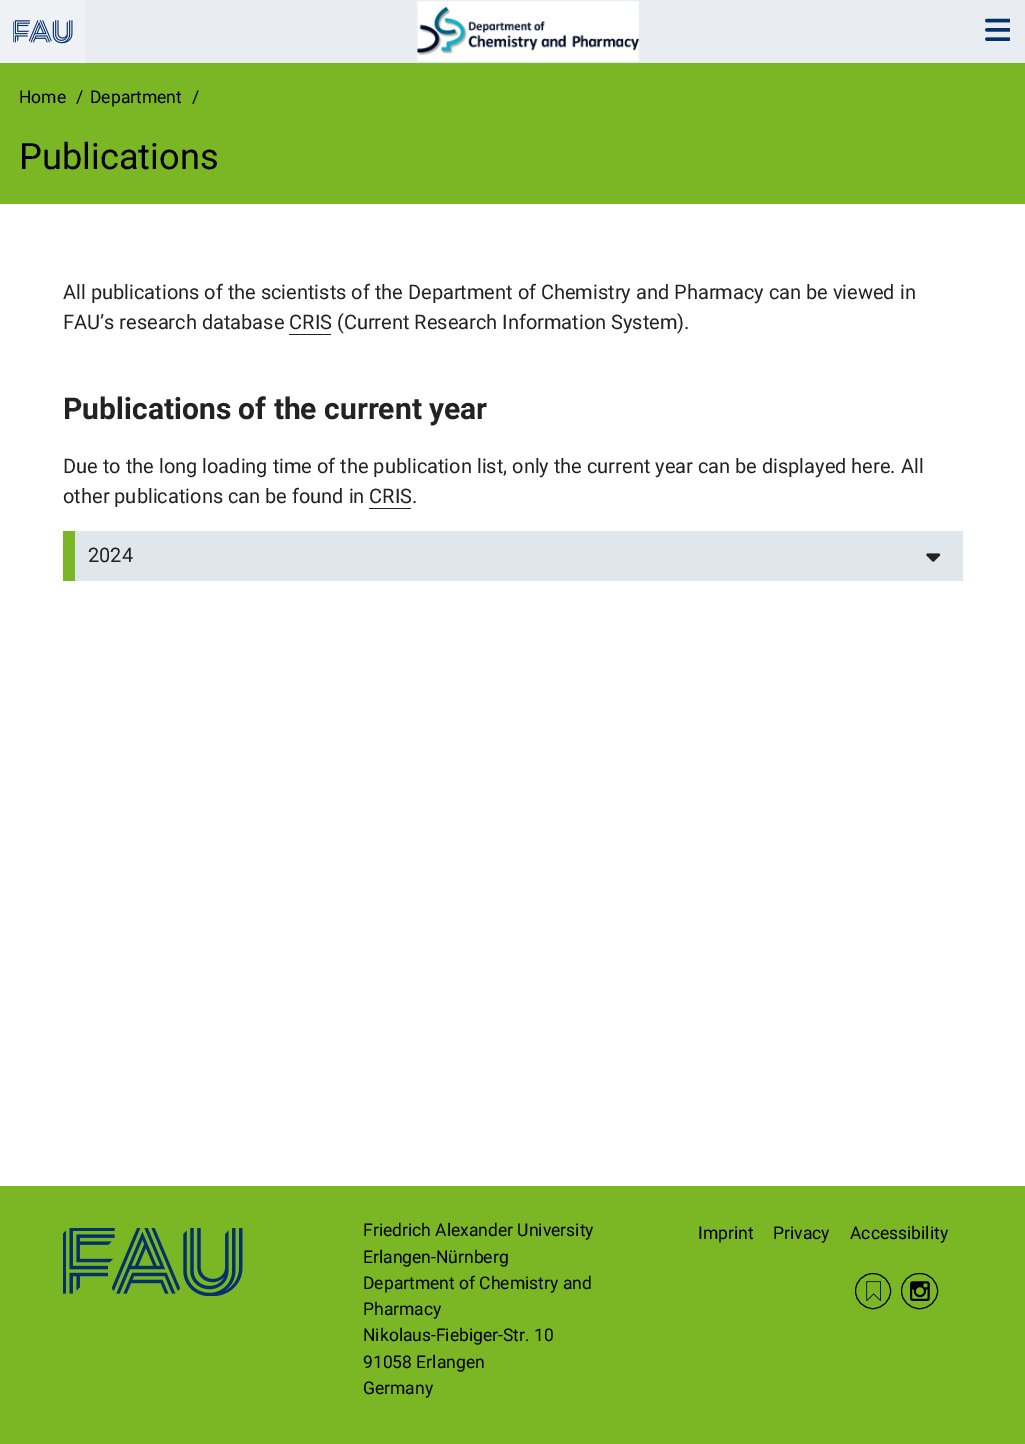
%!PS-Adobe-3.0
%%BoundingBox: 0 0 1025 1444
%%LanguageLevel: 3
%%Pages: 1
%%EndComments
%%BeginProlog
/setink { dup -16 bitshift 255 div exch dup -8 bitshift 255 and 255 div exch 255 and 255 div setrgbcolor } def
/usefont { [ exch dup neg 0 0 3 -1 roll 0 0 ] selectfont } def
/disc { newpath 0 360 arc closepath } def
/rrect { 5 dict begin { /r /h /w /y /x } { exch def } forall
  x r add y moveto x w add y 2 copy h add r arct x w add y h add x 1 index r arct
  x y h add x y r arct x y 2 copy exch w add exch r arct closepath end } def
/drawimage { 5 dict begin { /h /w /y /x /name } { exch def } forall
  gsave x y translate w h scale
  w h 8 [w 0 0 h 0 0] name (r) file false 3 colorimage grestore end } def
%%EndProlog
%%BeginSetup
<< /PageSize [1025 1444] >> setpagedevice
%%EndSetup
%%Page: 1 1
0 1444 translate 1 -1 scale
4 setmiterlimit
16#FFFFFF setink
0 0 1025 1444 rectfill
16#E9EDF2 setink
85 0 940 63 rectfill
16#EFF1F4 setink
0 0 85 63 rectfill
(img1.raw) 13 20 60 24 drawimage
(img2.raw) 417 1 222 61 drawimage
(img3.raw) 985 18 25 23 drawimage
16#7BB725 setink
0 63 1025 141 rectfill
/Roboto-Regular 17.5 usefont
16#000000 setink
[
    [(Home) 19 103]
    [(/) 76 103]
    [(Department) 90 103]
    [(/) 192 103]
] { aload pop moveto show } forall
/Roboto-Regular 36.25 usefont
19 169 moveto (Publications) show
/Roboto-Regular 20 usefont
16#222222 setink
63 299 moveto (All publications of the scientists of the Department of Chemistry and Pharmacy can be viewed in) show
63 329 moveto (FAU’s research database CRIS \(Current Research Information System\).) show
289 334 42 1 rectfill
/Roboto-Bold 30 usefont
63 419 moveto (Publications of the current year) show
/Roboto-Regular 20 usefont
63 473 moveto (Due to the long loading time of the publication list, only the current year can be displayed here. All) show
63 503 moveto (other publications can be found in CRIS.) show
[
    [369 508 42 1 16#222222]
    [75 531 888 50 16#DFE6EC]
    [63 531 12 50 16#7BB725]
] { aload pop setink rectfill } forall
16#222222 setink
88 562 moveto (2024) show
(img4.raw) 926 553 15 9 drawimage
16#7BB725 setink
0 1186 1025 258 rectfill
(img5.raw) 63 1228 180 68 drawimage
/Roboto-Regular 17.5 usefont
16#000000 setink
[
    [(Friedrich Alexander University) 363 1236]
    [(Erlangen-Nürnberg) 363 1263]
    [(Department of Chemistry and) 363 1289]
    [(Pharmacy) 363 1315]
    [(Nikolaus-Fiebiger-Str. 10) 363 1341]
    [(91058 Erlangen) 363 1368]
    [(Germany) 363 1394]
    [(Imprint) 698 1239]
    [(Privacy) 773 1239]
    [(Accessibility) 850 1239]
] { aload pop moveto show } forall
873 1291 17.5 disc stroke
(img6.raw) 866 1281 15 20 drawimage
901.5 1273.5 36 35 17.5 rrect stroke
(img7.raw) 910 1281 20 20 drawimage
showpage
%%EOF
